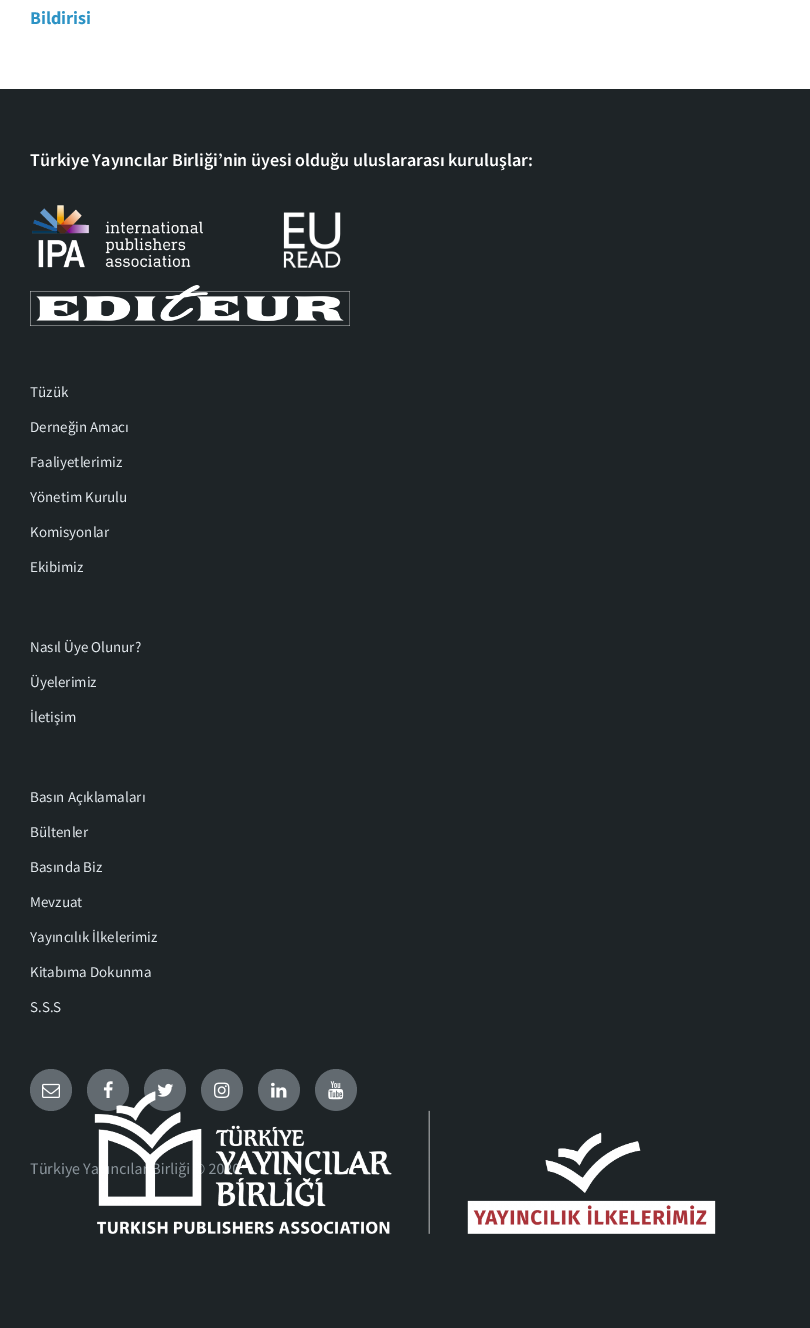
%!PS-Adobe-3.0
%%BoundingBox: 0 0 810 1328
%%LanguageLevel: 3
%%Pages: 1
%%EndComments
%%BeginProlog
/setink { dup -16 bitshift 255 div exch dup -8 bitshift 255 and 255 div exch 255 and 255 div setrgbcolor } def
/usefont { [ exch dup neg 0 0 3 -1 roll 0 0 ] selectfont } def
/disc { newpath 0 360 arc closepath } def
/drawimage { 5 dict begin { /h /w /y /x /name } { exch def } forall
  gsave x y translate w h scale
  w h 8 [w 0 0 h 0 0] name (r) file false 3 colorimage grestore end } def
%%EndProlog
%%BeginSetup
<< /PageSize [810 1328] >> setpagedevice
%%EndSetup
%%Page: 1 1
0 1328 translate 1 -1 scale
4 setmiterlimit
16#FFFFFF setink
0 0 810 1328 rectfill
/SourceSansPro-Bold 18 usefont
16#2D93C5 setink
30 24 moveto (Bildirisi) show
16#1E2427 setink
0 89 810 1239 rectfill
/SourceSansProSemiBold-SemiBold 18 usefont
16#FFFFFF setink
30 166 moveto (Türkiye Yayıncılar Birliği’nin üyesi olduğu uluslararası kuruluşlar:) show
(img1.raw) 32 205 171 63 drawimage
(img2.raw) 283 212 58 56 drawimage
(img3.raw) 30 285 320 41 drawimage
/SourceSansPro-Regular 15 usefont
16#E1E7EC setink
[
    [(Tüzük) 30 397]
    [(Derneğin Amacı) 30 432]
    [(Faaliyetlerimiz) 30 467]
    [(Yönetim Kurulu) 30 502]
    [(Komisyonlar) 30 537]
    [(Ekibimiz) 30 572]
    [(Nasıl Üye Olunur?) 30 652]
    [(Üyelerimiz) 30 687]
    [(İletişim) 30 722]
    [(Basın Açıklamaları) 30 802]
    [(Bültenler) 30 837]
    [(Basında Biz) 30 872]
    [(Mevzuat) 30 907]
    [(Yayıncılık İlkelerimiz) 30 942]
    [(Kitabıma Dokunma) 30 977]
    [(S.S.S) 30 1012]
] { aload pop moveto show } forall
16#626A70 setink
51 1090 21 disc fill
(img4.raw) 42 1083 18 15 drawimage
108 1090 21 disc fill
(img5.raw) 103 1081 10 17 drawimage
165 1090 21 disc fill
(img6.raw) 157 1083 17 14 drawimage
222 1090 21 disc fill
(img7.raw) 214 1082 16 16 drawimage
279 1090 21 disc fill
(img8.raw) 271 1082 16 16 drawimage
336 1090 21 disc fill
(img9.raw) 328 1081 16 19 drawimage
/SourceSansPro-Regular 16 usefont
16#8A949B setink
[
    [(Türkiye Ya) 30 1174]
    [(ncıla) 110 1174]
    [(irliği © 20) 161 1174]
] { aload pop moveto show } forall
(img10.raw) 94 1091 622 143 drawimage
showpage
%%EOF
